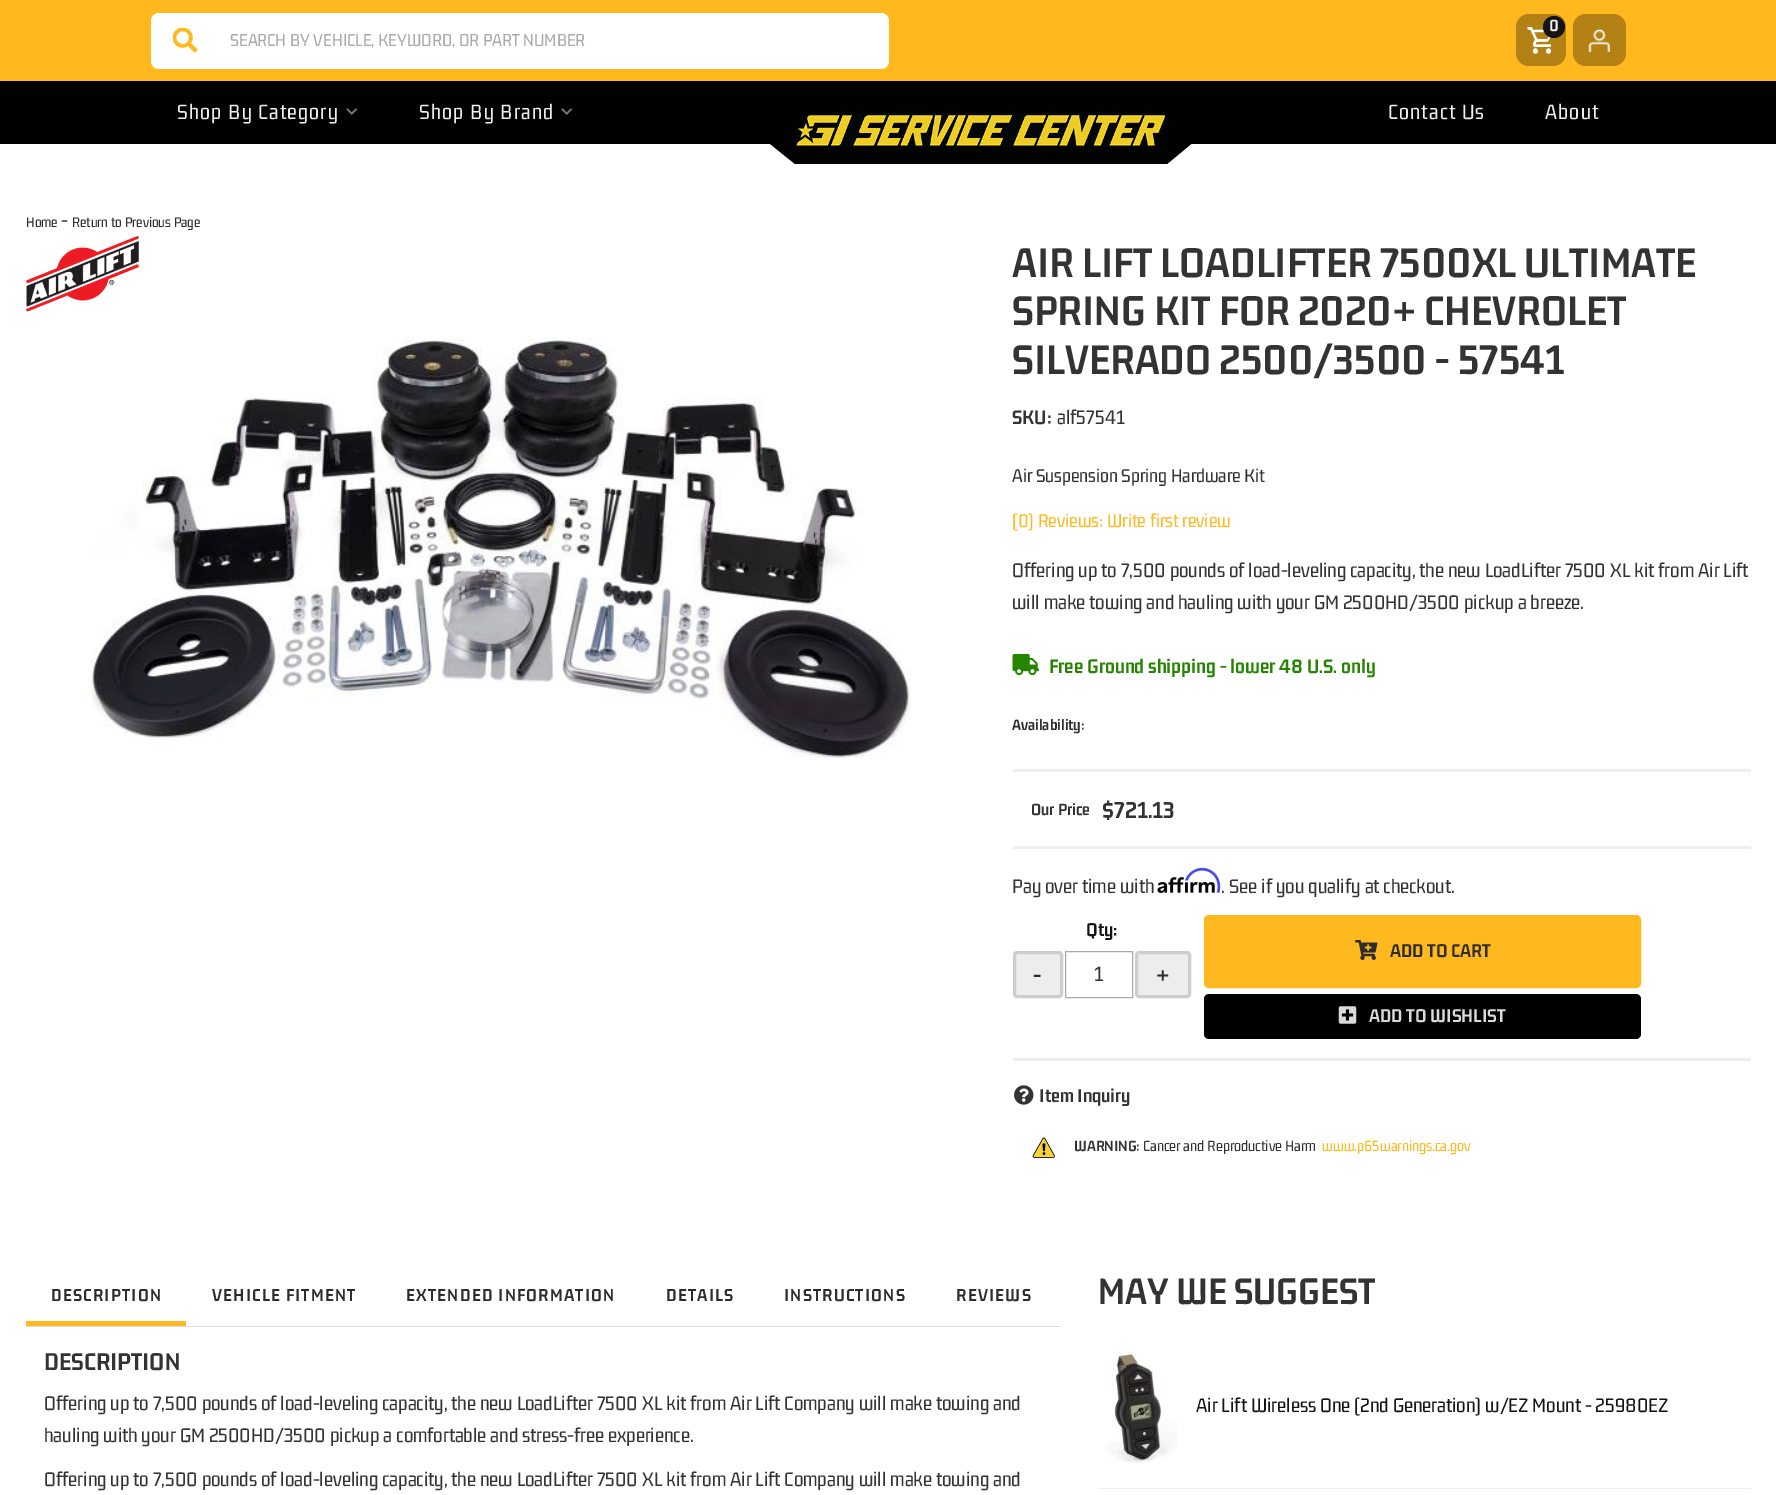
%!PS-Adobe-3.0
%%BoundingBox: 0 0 1776 1495
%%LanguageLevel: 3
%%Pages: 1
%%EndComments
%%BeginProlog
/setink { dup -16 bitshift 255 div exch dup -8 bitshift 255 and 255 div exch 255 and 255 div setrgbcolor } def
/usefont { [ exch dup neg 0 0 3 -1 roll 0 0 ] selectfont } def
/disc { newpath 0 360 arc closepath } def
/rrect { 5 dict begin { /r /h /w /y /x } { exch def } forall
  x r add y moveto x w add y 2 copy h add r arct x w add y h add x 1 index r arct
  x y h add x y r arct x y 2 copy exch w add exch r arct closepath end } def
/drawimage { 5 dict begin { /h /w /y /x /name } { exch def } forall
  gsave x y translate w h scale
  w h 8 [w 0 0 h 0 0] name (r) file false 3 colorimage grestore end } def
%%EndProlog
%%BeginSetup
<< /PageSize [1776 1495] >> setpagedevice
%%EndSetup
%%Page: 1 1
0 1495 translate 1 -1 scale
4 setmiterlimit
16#FFFFFF setink
0 0 1776 1495 rectfill
16#FFB81D setink
0 0 1776 81 rectfill
16#B38114 setink
1516 14 50 52 13 rrect fill
(img1.raw) 1527 27 24 27 drawimage
16#141414 setink
1554 27 11 disc fill
/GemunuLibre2-ExtraLight 17.5 usefont
16#EEEEEE setink
1549 31 moveto (0) show
16#B38114 setink
1573 14 53 52 13 rrect fill
(img2.raw) 1588 28 22 25 drawimage
16#FFFFFF setink
159 13 moveto 219 13 lineto 219 69 lineto 159 69 lineto 154.5 69 151 65.5 151 61 curveto 151 21 lineto 151 16.5 154.5 13 159 13 curveto closepath fill
(img3.raw) 173 28 25 25 drawimage
219 13 moveto 881 13 lineto 885.5 13 889 16.5 889 21 curveto 889 61 lineto 889 65.5 885.5 69 881 69 curveto 219 69 lineto closepath fill
/GemunuLibre-ExtraLight 18.75 usefont
16#AAAAAA setink
230 46 moveto (SEARCH BY VEHICLE, KEYWORD, OR PART NUMBER) show
16#010101 setink
0 81 1776 63 rectfill
/GemunuLibre-ExtraLight 22.5 usefont
16#EEEEEE setink
177 119 moveto 1.25 0 (Shop By Category) ashow
(img4.raw) 346 108 11 7 drawimage
419 119 moveto 1.25 0 (Shop By Brand) ashow
(img4.raw) 561 108 11 7 drawimage
16#010101 setink
749 127 moveto 749 126 lineto 1213 126 lineto 1167 164 lineto 795 164 lineto closepath fill
(img5.raw) 794 113 375 34 drawimage
16#EEEEEE setink
1388 119 moveto 1.25 0 (Contact Us) ashow
1545 119 moveto 1.25 0 (About) ashow
/GemunuLibre-ExtraLight 15 usefont
16#2D2D2D setink
26 227 moveto (Home) show
/GemunuLibre-ExtraLight 21.25 usefont
16#333333 setink
61 227 moveto (-) show
/GemunuLibre-ExtraLight 15 usefont
16#2D2D2D setink
72 227 moveto (Return to Previous Page) show
(img6.raw) 26 236 113 76 drawimage
(img7.raw) 87 337 824 421 drawimage
/GemunuLibre2-ExtraLight 45 usefont
16#333333 setink
[
    [(AIR LIFT LOADLIFTER 7500XL ULTIMATE) 1012 277]
    [(SPRING KIT FOR 2020+ CHEVROLET) 1012 325]
    [(SILVERADO 2500/3500 - 57541) 1012 374]
] { aload pop moveto show } forall
/GemunuLibre2-ExtraLight 21.25 usefont
1012 424 moveto (SKU:) show
/GemunuLibre-ExtraLight 21.25 usefont
1057 424 moveto (alf57541) show
/GemunuLibre-ExtraLight 20 usefont
1012 482 moveto (Air Suspension Spring Hardware Kit) show
16#FFB81D setink
1012 527 moveto (\(0\) Reviews: Write first review) show
/GemunuLibre-ExtraLight 21.25 usefont
16#333333 setink
1012 577 moveto (Offering up to 7,500 pounds of load-leveling capacity, the new LoadLifter 7500 XL kit from Air Lift) show
1012 609 moveto (will make towing and hauling with your GM 2500HD/3500 pickup a breeze.) show
(img8.raw) 1012 653 28 23 drawimage
/GemunuLibre2-ExtraLight 21.25 usefont
16#258500 setink
1049 673 moveto (Free Ground shipping - lower 48 U.S. only) show
/GemunuLibre2-ExtraLight 16.25 usefont
16#2D2D2D setink
1012 730 moveto (Availability:) show
16#EEEEEE setink
1013 769 738 3 rectfill
1013 846 738 3 rectfill
/GemunuLibre2-ExtraLight 17.5 usefont
16#333333 setink
1031 815 moveto (Our Price) show
/GemunuLibre2-ExtraLight 25 usefont
1102 818 moveto ($721.13) show
/GemunuLibre-ExtraLight 21.25 usefont
1012 893 moveto (Pay over time with) show
(img10.raw) 1157 877 58 16 drawimage
(img9.raw) 1185 867 36 26 drawimage
1221 893 moveto (. See if you qualify at checkout.) show
16#EEEEEE setink
1013 1058 738 3 rectfill
/GemunuLibre2-ExtraLight 20 usefont
16#141414 setink
1086 936 moveto (Qty:) show
16#EDEDED setink
1014.5 952.5 47 44 2.5 rrect gsave fill grestore
16#CECECE setink
3 setlinewidth
stroke
/GemunuLibre2-ExtraLight 25 usefont
16#2D2D2D setink
1033 983 moveto (-) show
16#AAAAAA setink
1 setlinewidth
1065.5 951.5 67 46 rectstroke
/GemunuLibre-ExtraLight 22.5 usefont
16#333333 setink
1094 981 moveto (1) show
16#EDEDED setink
1136.5 952.5 53 44 2.5 rrect gsave fill grestore
16#CECECE setink
3 setlinewidth
stroke
/GemunuLibre2-ExtraLight 25 usefont
16#2D2D2D setink
1156 983 moveto (+) show
16#FFB81D setink
1205.5 916.5 434 70 3.5 rrect gsave fill grestore
stroke
(img11.raw) 1355 940 23 20 drawimage
/GemunuLibre2-ExtraLight 20 usefont
16#2D2D2D setink
1390 957 moveto (ADD TO CART) show
16#010101 setink
1204 994 437 45 5 rrect fill
(img12.raw) 1338 1006 19 18 drawimage
16#DADADA setink
1369 1022 moveto (ADD TO WISHLIST) show
(img13.raw) 1014 1085 20 20 drawimage
16#333333 setink
1039 1102 moveto (Item Inquiry) show
(img14.raw) 1032 1137 23 21 drawimage
/GemunuLibre2-ExtraLight 16 usefont
1074 1151 moveto (WARNING:) show
/GemunuLibre-ExtraLight 16 usefont
1143 1151 moveto (Cancer and Reproductive Harm) show
16#FFB81D setink
1322 1151 moveto (www.p65warnings.ca.gov) show
16#DDDDDD setink
26 1326 1035 1 rectfill
16#FFB81D setink
26 1321 160 5 rectfill
/GemunuLibre2-ExtraLight 18.75 usefont
16#2D2D2D setink
51 1301 moveto 1.25 0 (DESCRIPTION) ashow
212 1301 moveto 1.25 0 (VEHICLE FITMENT) ashow
406 1301 moveto 1.25 0 (EXTENDED INFORMATION) ashow
666 1301 moveto 1.25 0 (DETAILS) ashow
784 1301 moveto 1.25 0 (INSTRUCTIONS) ashow
956 1301 moveto 1.25 0 (REVIEWS) ashow
/GemunuLibre2-ExtraLight 26.25 usefont
16#333333 setink
44 1370 moveto (DESCRIPTION) show
/GemunuLibre-ExtraLight 21.25 usefont
[
    [(Offering up to 7,500 pounds of load-leveling capacity, the new LoadLifter 7500 XL kit from Air Lift Company will make towing and) 44 1410]
    [(hauling with your GM 2500HD/3500 pickup a comfortable and stress-free experience.) 44 1442]
    [(Offering up to 7,500 pounds of load-leveling capacity, the new LoadLifter 7500 XL kit from Air Lift Company will make towing and) 44 1486]
] { aload pop moveto show } forall
/GemunuLibre2-ExtraLight 40 usefont
1098 1304 moveto (MAY WE SUGGEST) show
16#EEEEEE setink
1099 1488 652 1 rectfill
(img15.raw) 1105 1344 72 119 drawimage
/GemunuLibre-ExtraLight 21.25 usefont
16#141414 setink
1196 1412 moveto (Air Lift Wireless One \(2nd Generation\) w/EZ Mount - 25980EZ) show
showpage
%%EOF
